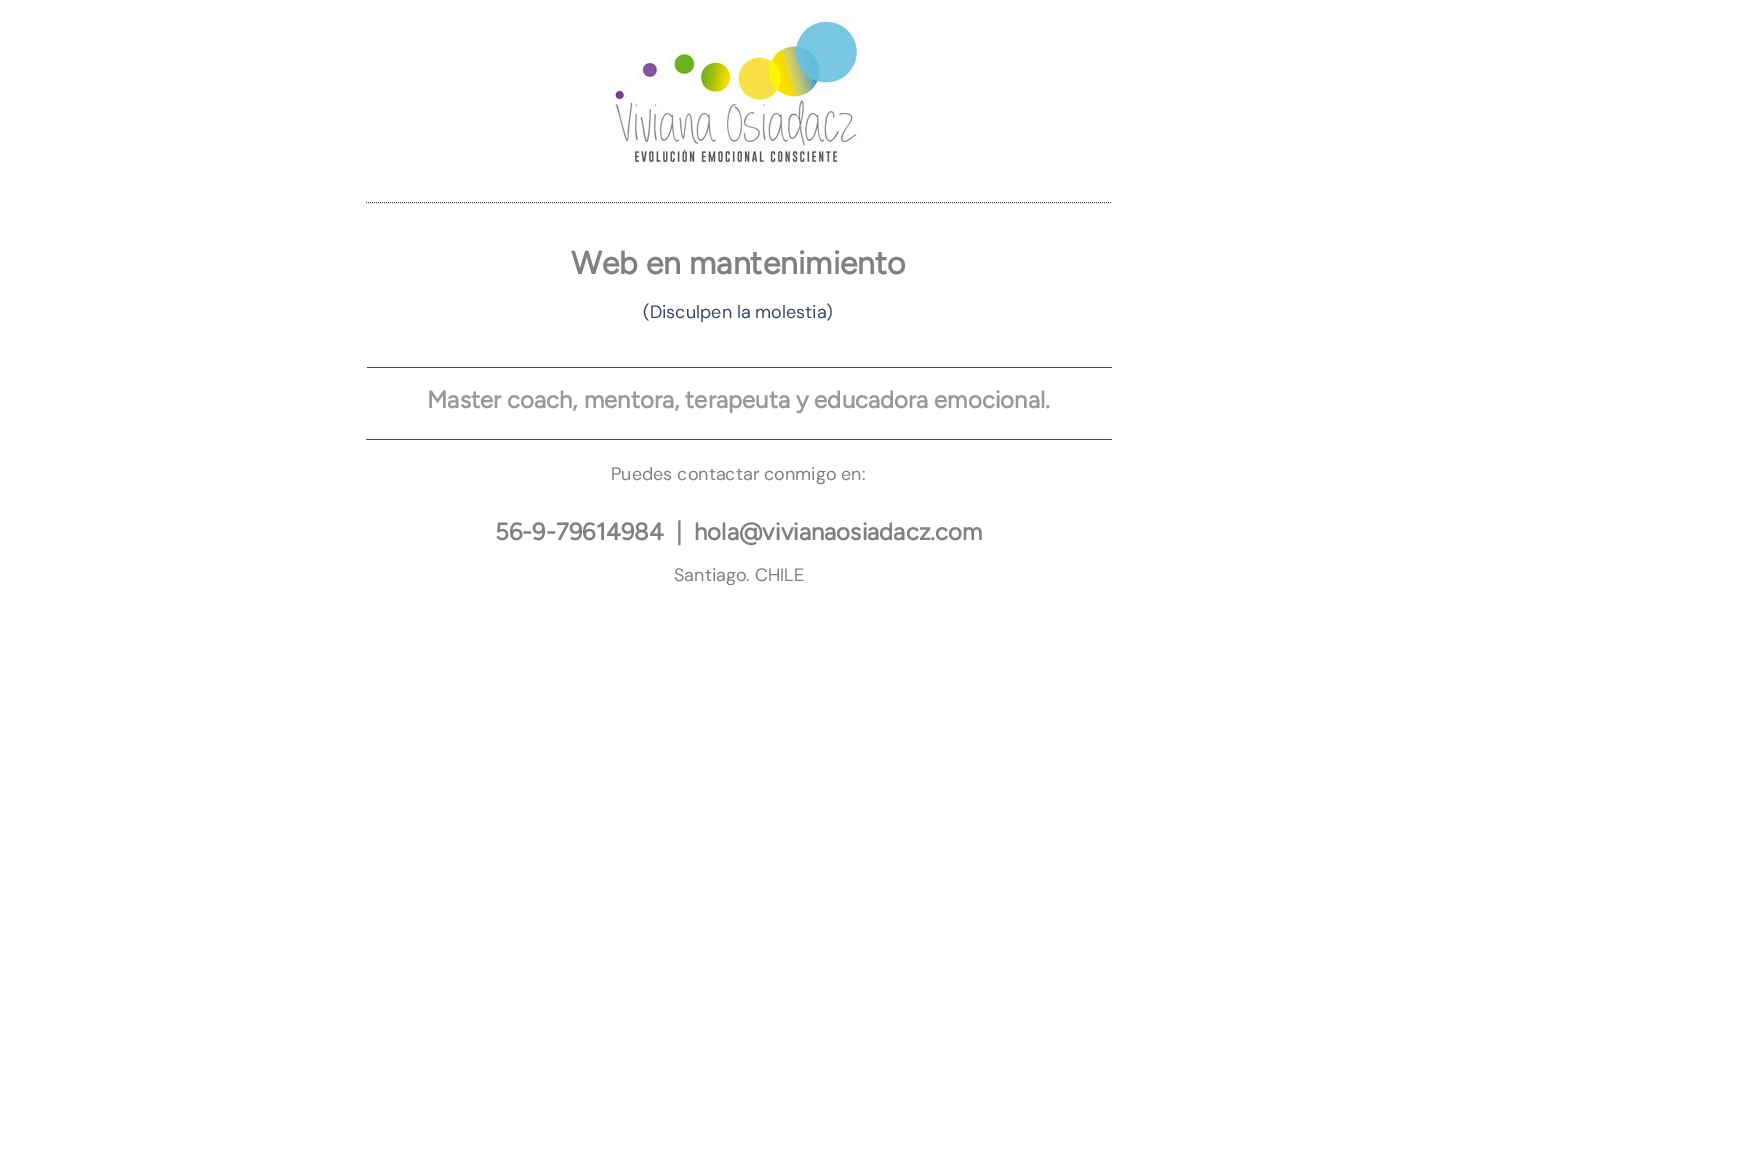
%!PS-Adobe-3.0
%%BoundingBox: 0 0 1753 1162
%%LanguageLevel: 3
%%Pages: 1
%%EndComments
%%BeginProlog
/setink { dup -16 bitshift 255 div exch dup -8 bitshift 255 and 255 div exch 255 and 255 div setrgbcolor } def
/usefont { [ exch dup neg 0 0 3 -1 roll 0 0 ] selectfont } def
/drawimage { 5 dict begin { /h /w /y /x /name } { exch def } forall
  gsave x y translate w h scale
  w h 8 [w 0 0 h 0 0] name (r) file false 3 colorimage grestore end } def
%%EndProlog
%%BeginSetup
<< /PageSize [1753 1162] >> setpagedevice
%%EndSetup
%%Page: 1 1
0 1162 translate 1 -1 scale
4 setmiterlimit
16#FFFFFF setink
0 0 1753 1162 rectfill
16#3D4562 setink
[1 1] 0 setdash
366 202.5 moveto 1112 202.5 lineto stroke
(img1.raw) 605 16 256 152 drawimage
/Figtree-Bold 32 usefont
16#808080 setink
571 274 moveto (Web en mantenimiento) show
/DMSans-Regular 18 usefont
16#3D4562 setink
643 318 moveto (\(Disculpen la molestia\)) show
367 367 745 1 rectfill
366 439 746 1 rectfill
/Figtree-Bold 24 usefont
16#999999 setink
427 408 moveto (Master coach, mentora, terapeuta y educadora emocional.) show
/DMSans-Regular 18 usefont
16#808080 setink
611 480 moveto (Puedes contactar conmigo en:) show
/Figtree-Bold 24 usefont
495 540 moveto (56-9-79614984  |  hola@vivianaosiadacz.com) show
/DMSans-Regular 18 usefont
674 581 moveto (Santiago. CHILE) show
showpage
%%EOF
